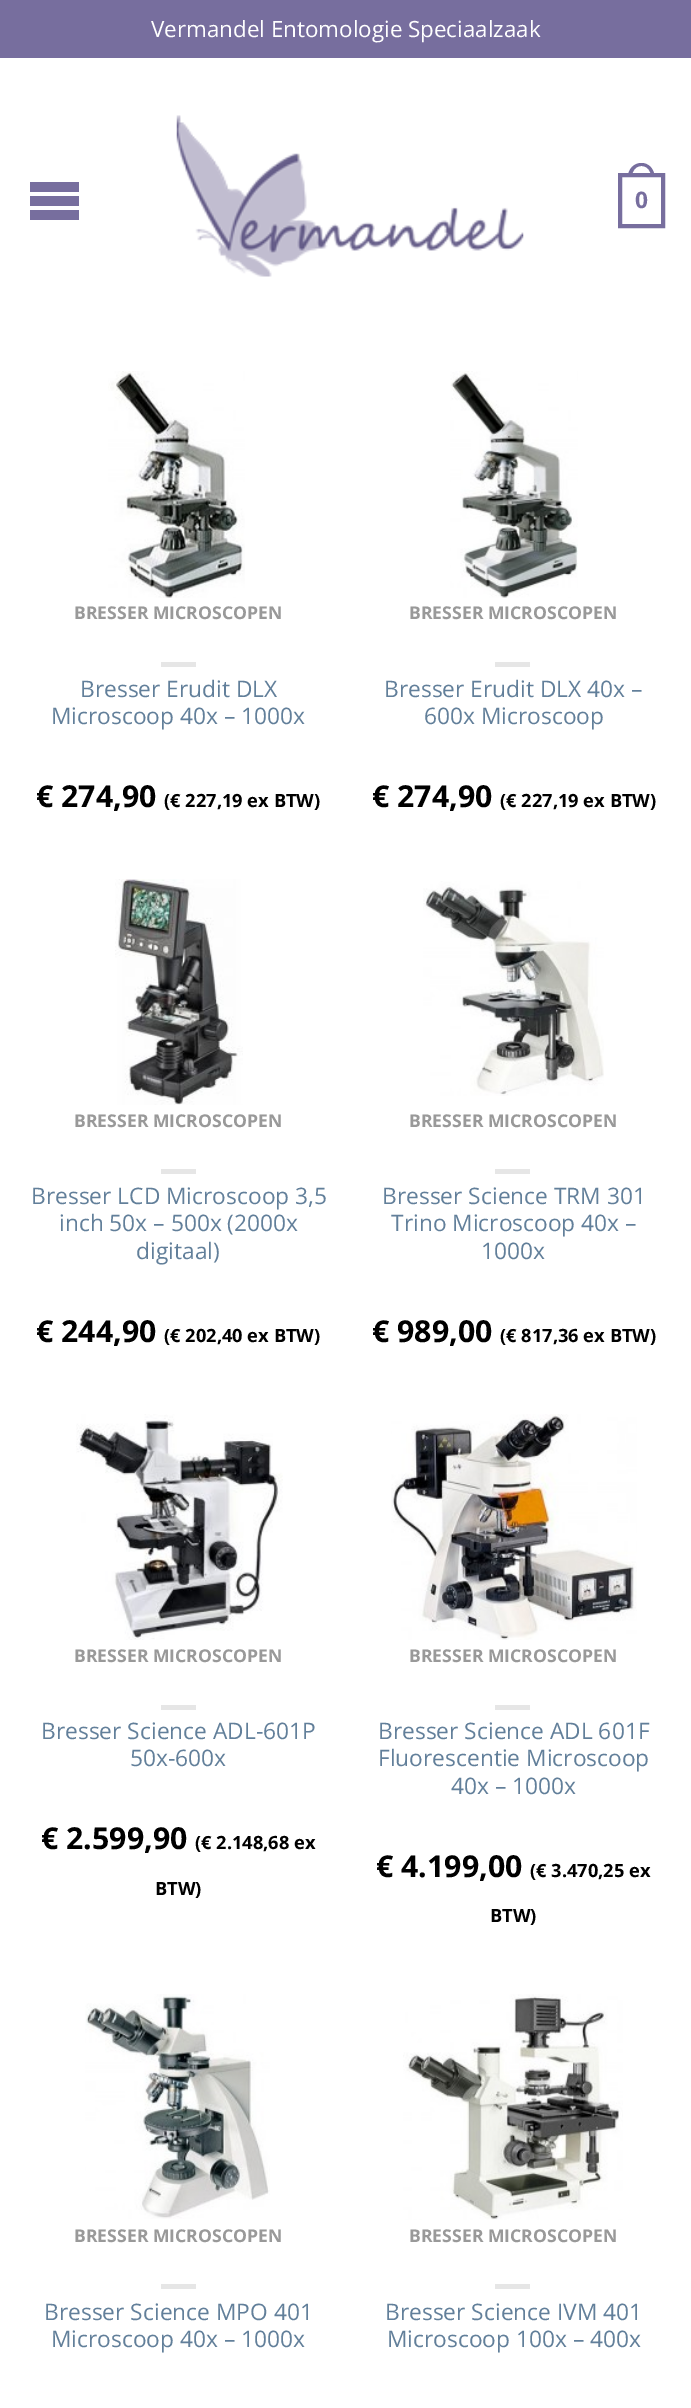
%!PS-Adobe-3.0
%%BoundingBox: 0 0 691 2408
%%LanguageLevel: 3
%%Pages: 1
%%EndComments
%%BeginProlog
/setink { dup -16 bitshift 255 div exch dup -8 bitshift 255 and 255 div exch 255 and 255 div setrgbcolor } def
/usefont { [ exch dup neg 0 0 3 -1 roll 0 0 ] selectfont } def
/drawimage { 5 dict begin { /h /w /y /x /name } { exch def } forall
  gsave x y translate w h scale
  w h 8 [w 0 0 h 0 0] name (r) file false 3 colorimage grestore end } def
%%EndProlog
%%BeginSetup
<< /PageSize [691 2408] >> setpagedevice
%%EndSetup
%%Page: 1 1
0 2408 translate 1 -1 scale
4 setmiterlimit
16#FFFFFF setink
0 0 691 2408 rectfill
16#776E9E setink
0 0 691 58 rectfill
/OpenSans-Regular 22.4 usefont
16#FFFFFF setink
151 37 moveto (Vermandel Entomologie Speciaalzaak) show
16#776E9E setink
30 182 moveto 79 182 lineto 79 192 lineto 30 192 lineto closepath 30 196 moveto 79 196 lineto 79 206 lineto 30 206 lineto closepath 30 210 moveto 79 210 lineto 79 220 lineto 30 220 lineto closepath fill
(img1.raw) 176 115 348 162 drawimage
641.5 163 moveto 649 163 654.5 169.5 654.5 177 curveto 628 177 lineto 628 169.5 633.5 163 641.5 163 curveto closepath 641.5 166 moveto 647.5 166 651 171 651 177 curveto 632 177 lineto 632 171 635.5 166 641.5 166 curveto closepath eofill
4 setlinewidth
620 175 43 51 rectstroke
/OpenSans-Bold 22.75 usefont
635 208 moveto (0) show
(img2.raw) 108 371 137 227 drawimage
/OpenSans-Bold 17.6 usefont
16#999999 setink
74 619 moveto (BRESSER MICROSCOPEN) show
16#E6E6E6 setink
161 662 35 5 rectfill
/OpenSans-Regular 22.75 usefont
16#627F9A setink
80 697 moveto (Bresser Erudit DLX) show
51 724 moveto (Microscoop 40x – 1000x) show
/OpenSans-Bold 30.25 usefont
16#000000 setink
36 807 moveto (€ 274,90) show
/OpenSans-Bold 18.25 usefont
164 807 moveto (\(€ 227,19 ex BTW\)) show
(img3.raw) 450 371 128 227 drawimage
/OpenSans-Bold 17.6 usefont
16#999999 setink
409 619 moveto (BRESSER MICROSCOPEN) show
16#E6E6E6 setink
495 662 35 5 rectfill
/OpenSans-Regular 22.75 usefont
16#627F9A setink
384 697 moveto (Bresser Erudit DLX 40x –) show
424 724 moveto (600x Microscoop) show
/OpenSans-Bold 30.25 usefont
16#000000 setink
372 807 moveto (€ 274,90) show
/OpenSans-Bold 18.25 usefont
500 807 moveto (\(€ 227,19 ex BTW\)) show
(img4.raw) 115 879 128 226 drawimage
/OpenSans-Bold 17.6 usefont
16#999999 setink
74 1127 moveto (BRESSER MICROSCOPEN) show
16#E6E6E6 setink
161 1169 35 5 rectfill
/OpenSans-Regular 22.75 usefont
16#627F9A setink
[
    [(Bresser LCD Microscoop 3,5) 31 1204]
    [(inch 50x – 500x \(2000x) 59 1231]
    [(digitaal\)) 136 1259]
] { aload pop moveto show } forall
/OpenSans-Bold 30.25 usefont
16#000000 setink
36 1342 moveto (€ 244,90) show
/OpenSans-Bold 18.25 usefont
164 1342 moveto (\(€ 202,40 ex BTW\)) show
(img5.raw) 423 881 181 215 drawimage
/OpenSans-Bold 17.6 usefont
16#999999 setink
409 1127 moveto (BRESSER MICROSCOPEN) show
16#E6E6E6 setink
495 1169 35 5 rectfill
/OpenSans-Regular 22.75 usefont
16#627F9A setink
[
    [(Bresser Science TRM 301) 382 1204]
    [(Trino Microscoop 40x –) 391 1231]
    [(1000x) 481 1259]
] { aload pop moveto show } forall
/OpenSans-Bold 30.25 usefont
16#000000 setink
372 1342 moveto (€ 989,00) show
/OpenSans-Bold 18.25 usefont
500 1342 moveto (\(€ 817,36 ex BTW\)) show
(img6.raw) 76 1414 207 226 drawimage
/OpenSans-Bold 17.6 usefont
16#999999 setink
74 1662 moveto (BRESSER MICROSCOPEN) show
16#E6E6E6 setink
161 1705 35 5 rectfill
/OpenSans-Regular 22.75 usefont
16#627F9A setink
41 1739 moveto (Bresser Science ADL-601P) show
130 1766 moveto (50x-600x) show
/OpenSans-Bold 30.25 usefont
16#000000 setink
41 1849 moveto (€ 2.599,90) show
/OpenSans-Bold 18.25 usefont
195 1849 moveto (\(€ 2.148,68 ex) show
155 1895 moveto (BTW\)) show
(img7.raw) 391 1414 246 226 drawimage
/OpenSans-Bold 17.6 usefont
16#999999 setink
409 1662 moveto (BRESSER MICROSCOPEN) show
16#E6E6E6 setink
495 1705 35 5 rectfill
/OpenSans-Regular 22.75 usefont
16#627F9A setink
[
    [(Bresser Science ADL 601F) 378 1739]
    [(Fluorescentie Microscoop) 378 1766]
    [(40x – 1000x) 451 1794]
] { aload pop moveto show } forall
/OpenSans-Bold 30.25 usefont
16#000000 setink
376 1877 moveto (€ 4.199,00) show
/OpenSans-Bold 18.25 usefont
530 1877 moveto (\(€ 3.470,25 ex) show
490 1922 moveto (BTW\)) show
(img8.raw) 85 1994 185 225 drawimage
/OpenSans-Bold 17.6 usefont
16#999999 setink
74 2242 moveto (BRESSER MICROSCOPEN) show
16#E6E6E6 setink
161 2284 35 5 rectfill
/OpenSans-Regular 22.75 usefont
16#627F9A setink
44 2320 moveto (Bresser Science MPO 401) show
51 2347 moveto (Microscoop 40x – 1000x) show
(img9.raw) 403 1994 220 226 drawimage
/OpenSans-Bold 17.6 usefont
16#999999 setink
409 2242 moveto (BRESSER MICROSCOPEN) show
16#E6E6E6 setink
495 2284 35 5 rectfill
/OpenSans-Regular 22.75 usefont
16#627F9A setink
385 2320 moveto (Bresser Science IVM 401) show
387 2347 moveto (Microscoop 100x – 400x) show
showpage
%%EOF
